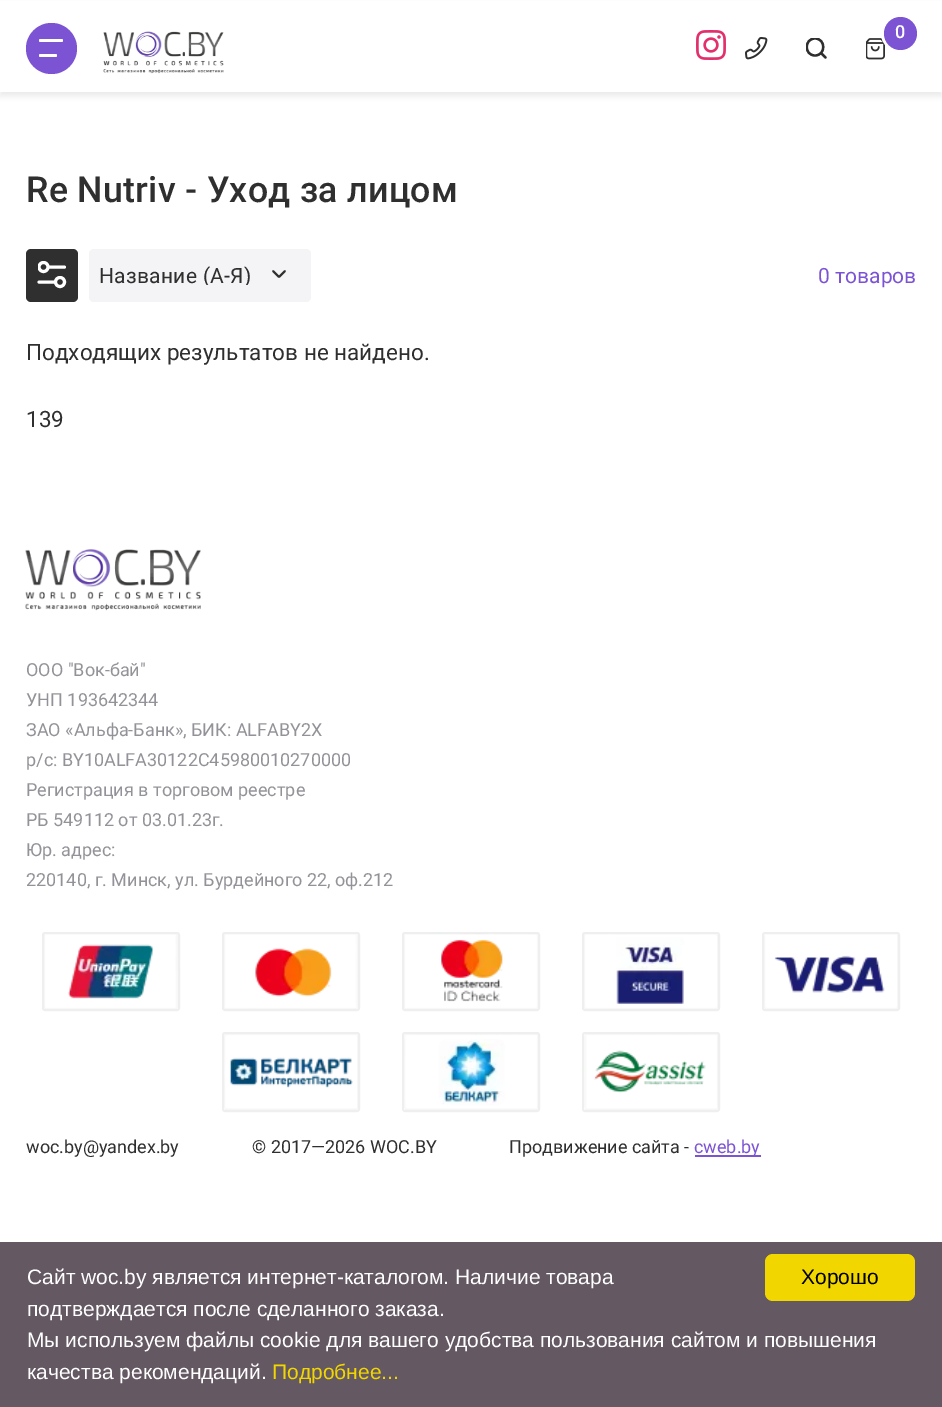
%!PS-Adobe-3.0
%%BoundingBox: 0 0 942 1407
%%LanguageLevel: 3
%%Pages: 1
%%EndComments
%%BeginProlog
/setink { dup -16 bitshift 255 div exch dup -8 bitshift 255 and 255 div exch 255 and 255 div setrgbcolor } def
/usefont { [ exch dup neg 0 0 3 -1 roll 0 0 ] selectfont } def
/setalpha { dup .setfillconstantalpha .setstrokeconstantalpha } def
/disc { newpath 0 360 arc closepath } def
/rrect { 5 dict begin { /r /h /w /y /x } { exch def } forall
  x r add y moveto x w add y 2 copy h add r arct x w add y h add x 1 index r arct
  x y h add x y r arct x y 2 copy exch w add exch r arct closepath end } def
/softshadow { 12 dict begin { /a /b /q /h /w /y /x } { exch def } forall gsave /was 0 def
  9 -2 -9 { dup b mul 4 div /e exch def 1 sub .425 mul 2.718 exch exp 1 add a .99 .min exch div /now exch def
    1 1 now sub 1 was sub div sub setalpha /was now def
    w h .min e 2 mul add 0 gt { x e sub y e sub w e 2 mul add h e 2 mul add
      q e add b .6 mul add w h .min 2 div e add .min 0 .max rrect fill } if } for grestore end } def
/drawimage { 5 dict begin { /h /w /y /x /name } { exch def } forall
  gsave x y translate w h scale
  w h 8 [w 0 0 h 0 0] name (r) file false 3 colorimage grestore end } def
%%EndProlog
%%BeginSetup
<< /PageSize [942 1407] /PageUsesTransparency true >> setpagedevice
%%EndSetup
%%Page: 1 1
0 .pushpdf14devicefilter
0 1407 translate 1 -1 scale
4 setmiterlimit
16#FFFFFF setink
0 0 942 1407 rectfill
16#A8A8A8 setink
0 5 942 91 0 3 0.25 softshadow
16#FFFFFF setink
0 1 942 91 rectfill
16#7C54D3 setink
51.5 48.5 25.5 disc fill
16#FFFFFF setink
39 39 24 3 1.5 rrect fill
39 54 18 3 1.5 rrect fill
(img1.raw) 103 31 121 43 drawimage
(img2.raw) 696 30 30 30 drawimage
(img3.raw) 745 37 23 23 drawimage
(img4.raw) 866 38 19 22 drawimage
3 setlinewidth
900.5 33.5 18 disc stroke
16#7C54D3 setink
900.5 33.5 16.5 disc fill
/Roboto-Medium 18 usefont
16#FFFFFF setink
895 38 moveto (0) show
gsave
806 38 21 21 rectclip
16#302F2F setink
2.3 setlinewidth
1 setlinecap
1 setlinejoin
815 55.5 moveto 826 55.5 826 38.5 815 38.5 curveto 804 38.5 804 55.5 815 55.5 curveto closepath stroke
grestore
16#302F2F setink
2.3 setlinewidth
1 setlinecap
1 setlinejoin
825.5 57.5 moveto 821.5 53.5 lineto stroke
/Roboto-Medium 35.75 usefont
26 202 moveto 0.3 0 (Re Nutriv - Уход за лицом) ashow
26 249 52 53 5 rrect fill
16#FFFFFF setink
3 setlinewidth
0 setlinejoin
39 282 moveto 54 282 lineto 49.5 267 moveto 64.5 267 lineto stroke
0 setlinecap
60 282 4.5 disc stroke
gsave
38 261 28 27 rectclip
43.5 267 4.5 disc stroke
grestore
16#F4F3F5 setink
89 249 222 53 5 rrect fill
gsave
99 264 153 21 rectclip
/Roboto-Regular 21 usefont
16#302F2F setink
99 283 moveto 0.3 0 (Название \(А-Я\)) ashow
grestore
16#302F2F setink
1.8 setlinewidth
1 setlinecap
1 setlinejoin
273 271 moveto 279 277 lineto 285 271 lineto stroke
/Roboto-Regular 21 usefont
16#7C54D3 setink
818 283 moveto (0 товаров) show
/Roboto-Regular 22.5 usefont
16#302F2F setink
26 360 moveto (Подходящих результатов не найдено.) show
26 427 moveto (139) show
(img5.raw) 25 549 176 62 drawimage
/Roboto-Regular 18 usefont
16#939298 setink
[
    [(ООО "Вок-бай") 26 676]
    [(УНП 193642344) 26 706]
    [(ЗАО «Альфа-Банк», БИК: ALFABY2X) 26 736]
    [(р/с: BY10ALFA30122C45980010270000) 26 766]
    [(Регистрация в торговом реестре) 26 796]
    [(РБ 549112 от 03.01.23г.) 26 826]
    [(Юр. адрес:) 26 856]
    [(220140, г. Минск, ул. Бурдейного 22, оф.212) 26 886]
] { aload pop moveto show } forall
16#EFEFEF setink
2 setlinewidth
0 setlinecap
0 setlinejoin
43 933 136 77 2 rrect stroke
(img6.raw) 44 934 134 75 drawimage
223 933 136 77 2 rrect stroke
(img7.raw) 224 934 134 75 drawimage
403 933 136 77 2 rrect stroke
(img8.raw) 404 933 134 76 drawimage
583 933 136 77 2 rrect stroke
(img9.raw) 584 934 134 75 drawimage
763 933 136 77 2 rrect stroke
(img10.raw) 764 934 134 75 drawimage
223 1033 136 78 2 rrect stroke
(img11.raw) 224 1034 134 76 drawimage
403 1033 136 78 2 rrect stroke
(img12.raw) 404 1034 134 76 drawimage
583 1033 136 78 2 rrect stroke
(img13.raw) 584 1034 134 76 drawimage
16#302F2F setink
[
    [(woc.by@yandex.by) 26 1153]
    [(© 2017—2026 WOC.BY) 252 1153]
    [(Продвижение сайта -) 509 1153]
] { aload pop moveto show } forall
16#7C54D3 setink
695 1155 66 2 rectfill
694 1153 moveto (cweb.by) show
16#645862 setink
0 1242 942 165 rectfill
/LiberationSans-Regular 21 usefont
16#FFFFFF setink
[
    [(Сайт woc.by является интернет-каталогом. Наличие товара) 27 1284]
    [(подтверждается после сделанного заказа.) 27 1316]
    [(Мы используем файлы cookie для вашего удобства пользования сайтом и повышения) 27 1347]
    [(качества рекомендаций.) 27 1379]
] { aload pop moveto show } forall
16#F1D600 setink
272 1379 moveto (Подробнее...) show
765 1254 150 47 8 rrect fill
16#000000 setink
801 1284 moveto (Хорошо) show
.poppdf14devicefilter showpage
%%EOF
